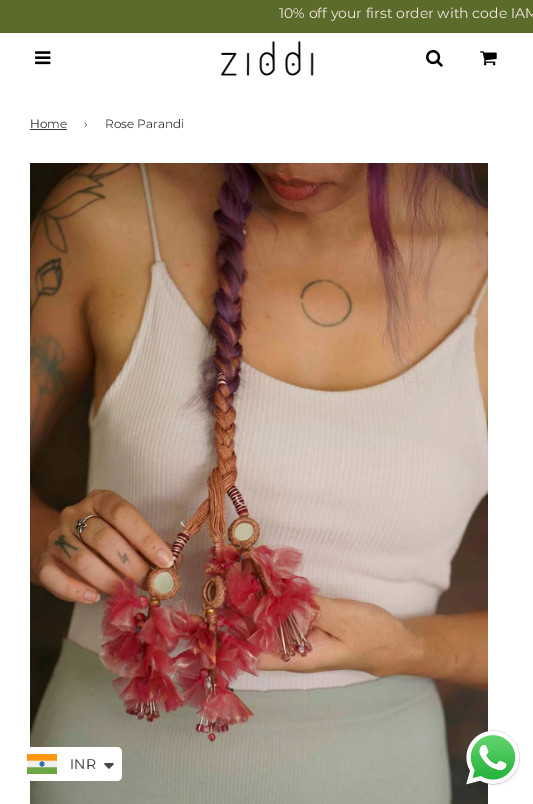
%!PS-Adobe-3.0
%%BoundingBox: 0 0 533 804
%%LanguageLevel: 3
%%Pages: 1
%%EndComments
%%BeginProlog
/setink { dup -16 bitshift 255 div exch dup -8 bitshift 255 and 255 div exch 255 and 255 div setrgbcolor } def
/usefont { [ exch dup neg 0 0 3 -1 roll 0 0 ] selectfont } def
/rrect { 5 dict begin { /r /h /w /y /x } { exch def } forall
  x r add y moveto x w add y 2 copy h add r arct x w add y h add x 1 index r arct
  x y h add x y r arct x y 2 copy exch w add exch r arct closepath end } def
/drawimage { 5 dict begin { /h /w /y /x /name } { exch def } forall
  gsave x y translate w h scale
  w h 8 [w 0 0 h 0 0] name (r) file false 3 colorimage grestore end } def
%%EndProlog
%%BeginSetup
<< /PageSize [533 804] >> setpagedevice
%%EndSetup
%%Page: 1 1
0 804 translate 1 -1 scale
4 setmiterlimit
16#FFFFFF setink
0 0 533 804 rectfill
16#5B6B2B setink
0 0 533 33 rectfill
/Montserrat-Regular 14 usefont
16#F9EAE4 setink
279 18 moveto (10% off your first order with code IAM) show
(img1.raw) 35 51 16 14 drawimage
(img2.raw) 220 41 94 35 drawimage
(img3.raw) 426 50 17 17 drawimage
(img4.raw) 480 51 17 15 drawimage
/Montserrat-Regular 12 usefont
16#373737 setink
30 128 moveto (Home) show
30 129 37 1 rectfill
84 128 moveto (›) show
105 128 moveto (Rose Parandi) show
(img5.raw) 30 163 458 641 drawimage
16#FFFFFF setink
20 747 102 34 5 rrect fill
(img6.raw) 27 754 30 20 drawimage
/Montserrat-Regular 14 usefont
16#373737 setink
70 769 moveto (INR) show
16#474942 setink
106 763 moveto 105 763 104.5 763.5 104 764 curveto 109 769 lineto 114 764 lineto 113 763 lineto closepath fill
(img7.raw) 466 730 54 56 drawimage
showpage
%%EOF
